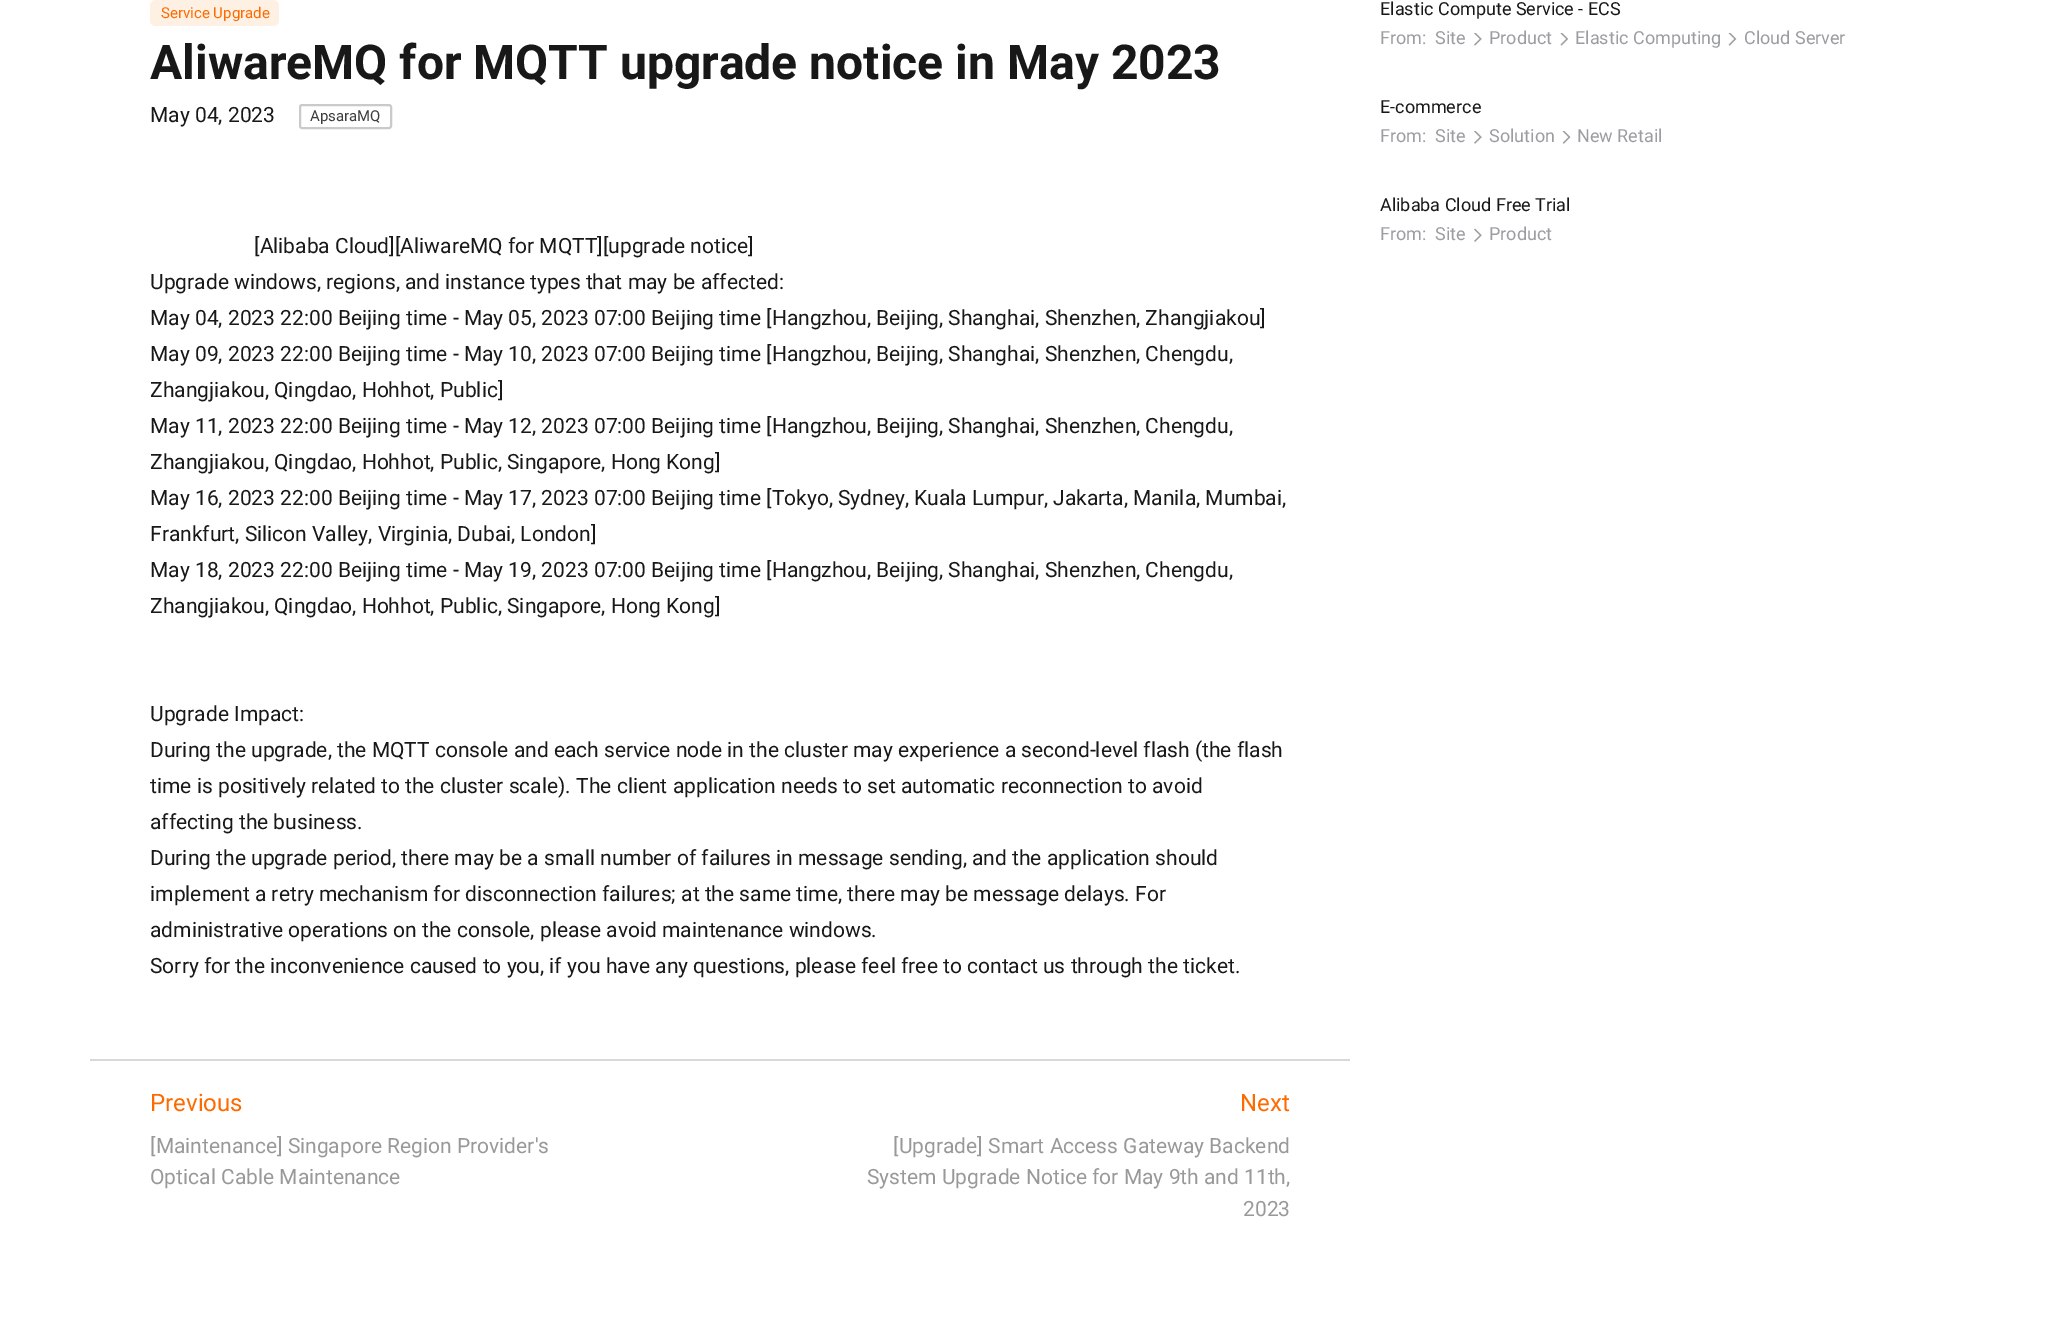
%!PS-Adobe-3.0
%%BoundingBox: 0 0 2054 1328
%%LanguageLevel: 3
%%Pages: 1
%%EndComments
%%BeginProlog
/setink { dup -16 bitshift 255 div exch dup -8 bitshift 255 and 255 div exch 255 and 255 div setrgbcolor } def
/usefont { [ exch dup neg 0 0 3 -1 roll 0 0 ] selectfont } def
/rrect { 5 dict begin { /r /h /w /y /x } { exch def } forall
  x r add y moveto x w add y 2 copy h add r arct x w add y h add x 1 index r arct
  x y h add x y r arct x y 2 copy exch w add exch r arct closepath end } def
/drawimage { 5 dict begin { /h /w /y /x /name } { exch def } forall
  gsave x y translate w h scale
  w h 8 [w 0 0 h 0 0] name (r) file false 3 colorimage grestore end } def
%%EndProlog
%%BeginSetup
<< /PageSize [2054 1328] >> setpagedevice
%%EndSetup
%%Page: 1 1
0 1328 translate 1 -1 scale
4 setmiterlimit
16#FFFFFF setink
0 0 2054 1328 rectfill
16#FFF0E4 setink
150 0 129 26 6 rrect fill
/Roboto-Regular 15 usefont
16#FF6A00 setink
161 18 moveto (Service Upgrade) show
/Roboto-Bold 48 usefont
16#181818 setink
150 79 moveto (AliwareMQ for MQTT upgrade notice in May 2023) show
/Roboto-Regular 21 usefont
150 122 moveto (May 04, 2023) show
16#CACACA setink
2 setlinewidth
300 105 91 23 2 rrect stroke
/Roboto-Regular 15 usefont
16#3C3C3C setink
310 121 moveto (ApsaraMQ) show
/Roboto-Regular 21 usefont
16#181818 setink
[
    [([Alibaba Cloud][AliwareMQ for MQTT][upgrade notice]) 254 253]
    [(Upgrade windows, regions, and instance types that may be affected:) 150 289]
    [(May 04, 2023 22:00 Beijing time - May 05, 2023 07:00 Beijing time [Hangzhou, Beijing, Shanghai, Shenzhen, Zhangjiakou]) 150 325]
    [(May 09, 2023 22:00 Beijing time - May 10, 2023 07:00 Beijing time [Hangzhou, Beijing, Shanghai, Shenzhen, Chengdu,) 150 361]
    [(Zhangjiakou, Qingdao, Hohhot, Public]) 150 397]
    [(May 11, 2023 22:00 Beijing time - May 12, 2023 07:00 Beijing time [Hangzhou, Beijing, Shanghai, Shenzhen, Chengdu,) 150 433]
    [(Zhangjiakou, Qingdao, Hohhot, Public, Singapore, Hong Kong]) 150 469]
    [(May 16, 2023 22:00 Beijing time - May 17, 2023 07:00 Beijing time [Tokyo, Sydney, Kuala Lumpur, Jakarta, Manila, Mumbai,) 150 505]
    [(Frankfurt, Silicon Valley, Virginia, Dubai, London]) 150 541]
    [(May 18, 2023 22:00 Beijing time - May 19, 2023 07:00 Beijing time [Hangzhou, Beijing, Shanghai, Shenzhen, Chengdu,) 150 577]
    [(Zhangjiakou, Qingdao, Hohhot, Public, Singapore, Hong Kong]) 150 613]
    [(Upgrade Impact:) 150 721]
    [(During the upgrade, the MQTT console and each service node in the cluster may experience a second-level flash \(the flash) 150 757]
    [(time is positively related to the cluster scale\). The client application needs to set automatic reconnection to avoid) 150 793]
    [(affecting the business.) 150 829]
    [(During the upgrade period, there may be a small number of failures in message sending, and the application should) 150 865]
    [(implement a retry mechanism for disconnection failures; at the same time, there may be message delays. For) 150 901]
    [(administrative operations on the console, please avoid maintenance windows.) 150 937]
    [(Sorry for the inconvenience caused to you, if you have any questions, please feel free to contact us through the ticket.) 150 973]
] { aload pop moveto show } forall
16#D8D8D8 setink
90 1059 1260 2 rectfill
/Roboto-Regular 24 usefont
16#FF6A00 setink
150 1111 moveto (Previous) show
/Roboto-Regular 21 usefont
16#999999 setink
150 1153 moveto ([Maintenance] Singapore Region Provider's) show
150 1184 moveto (Optical Cable Maintenance) show
/Roboto-Regular 24 usefont
16#FF6A00 setink
1240 1111 moveto (Next) show
/Roboto-Regular 21 usefont
16#999999 setink
[
    [([Upgrade] Smart Access Gateway Backend) 893 1153]
    [(System Upgrade Notice for May 9th and 11th,) 867 1184]
    [(2023) 1243 1216]
] { aload pop moveto show } forall
/Roboto-Regular 18 usefont
16#181818 setink
1380 15 moveto (Elastic Compute Service - ECS) show
16#9B9EA0 setink
1380 44 moveto (From:) show
1435 44 moveto (Site) show
(img1.raw) 1474 33 8 13 drawimage
1489 44 moveto (Product) show
(img2.raw) 1560 33 8 13 drawimage
1575 44 moveto (Elastic Computing) show
(img3.raw) 1728 33 9 13 drawimage
1744 44 moveto (Cloud Server) show
16#181818 setink
1380 113 moveto (E-commerce) show
16#9B9EA0 setink
1380 142 moveto (From:) show
1435 142 moveto (Site) show
(img4.raw) 1474 131 8 13 drawimage
1489 142 moveto (Solution) show
(img5.raw) 1562 131 9 13 drawimage
1577 142 moveto (New Retail) show
16#181818 setink
1380 211 moveto (Alibaba Cloud Free Trial) show
16#9B9EA0 setink
1380 240 moveto (From:) show
1435 240 moveto (Site) show
(img6.raw) 1474 228 8 14 drawimage
1489 240 moveto (Product) show
showpage
%%EOF
